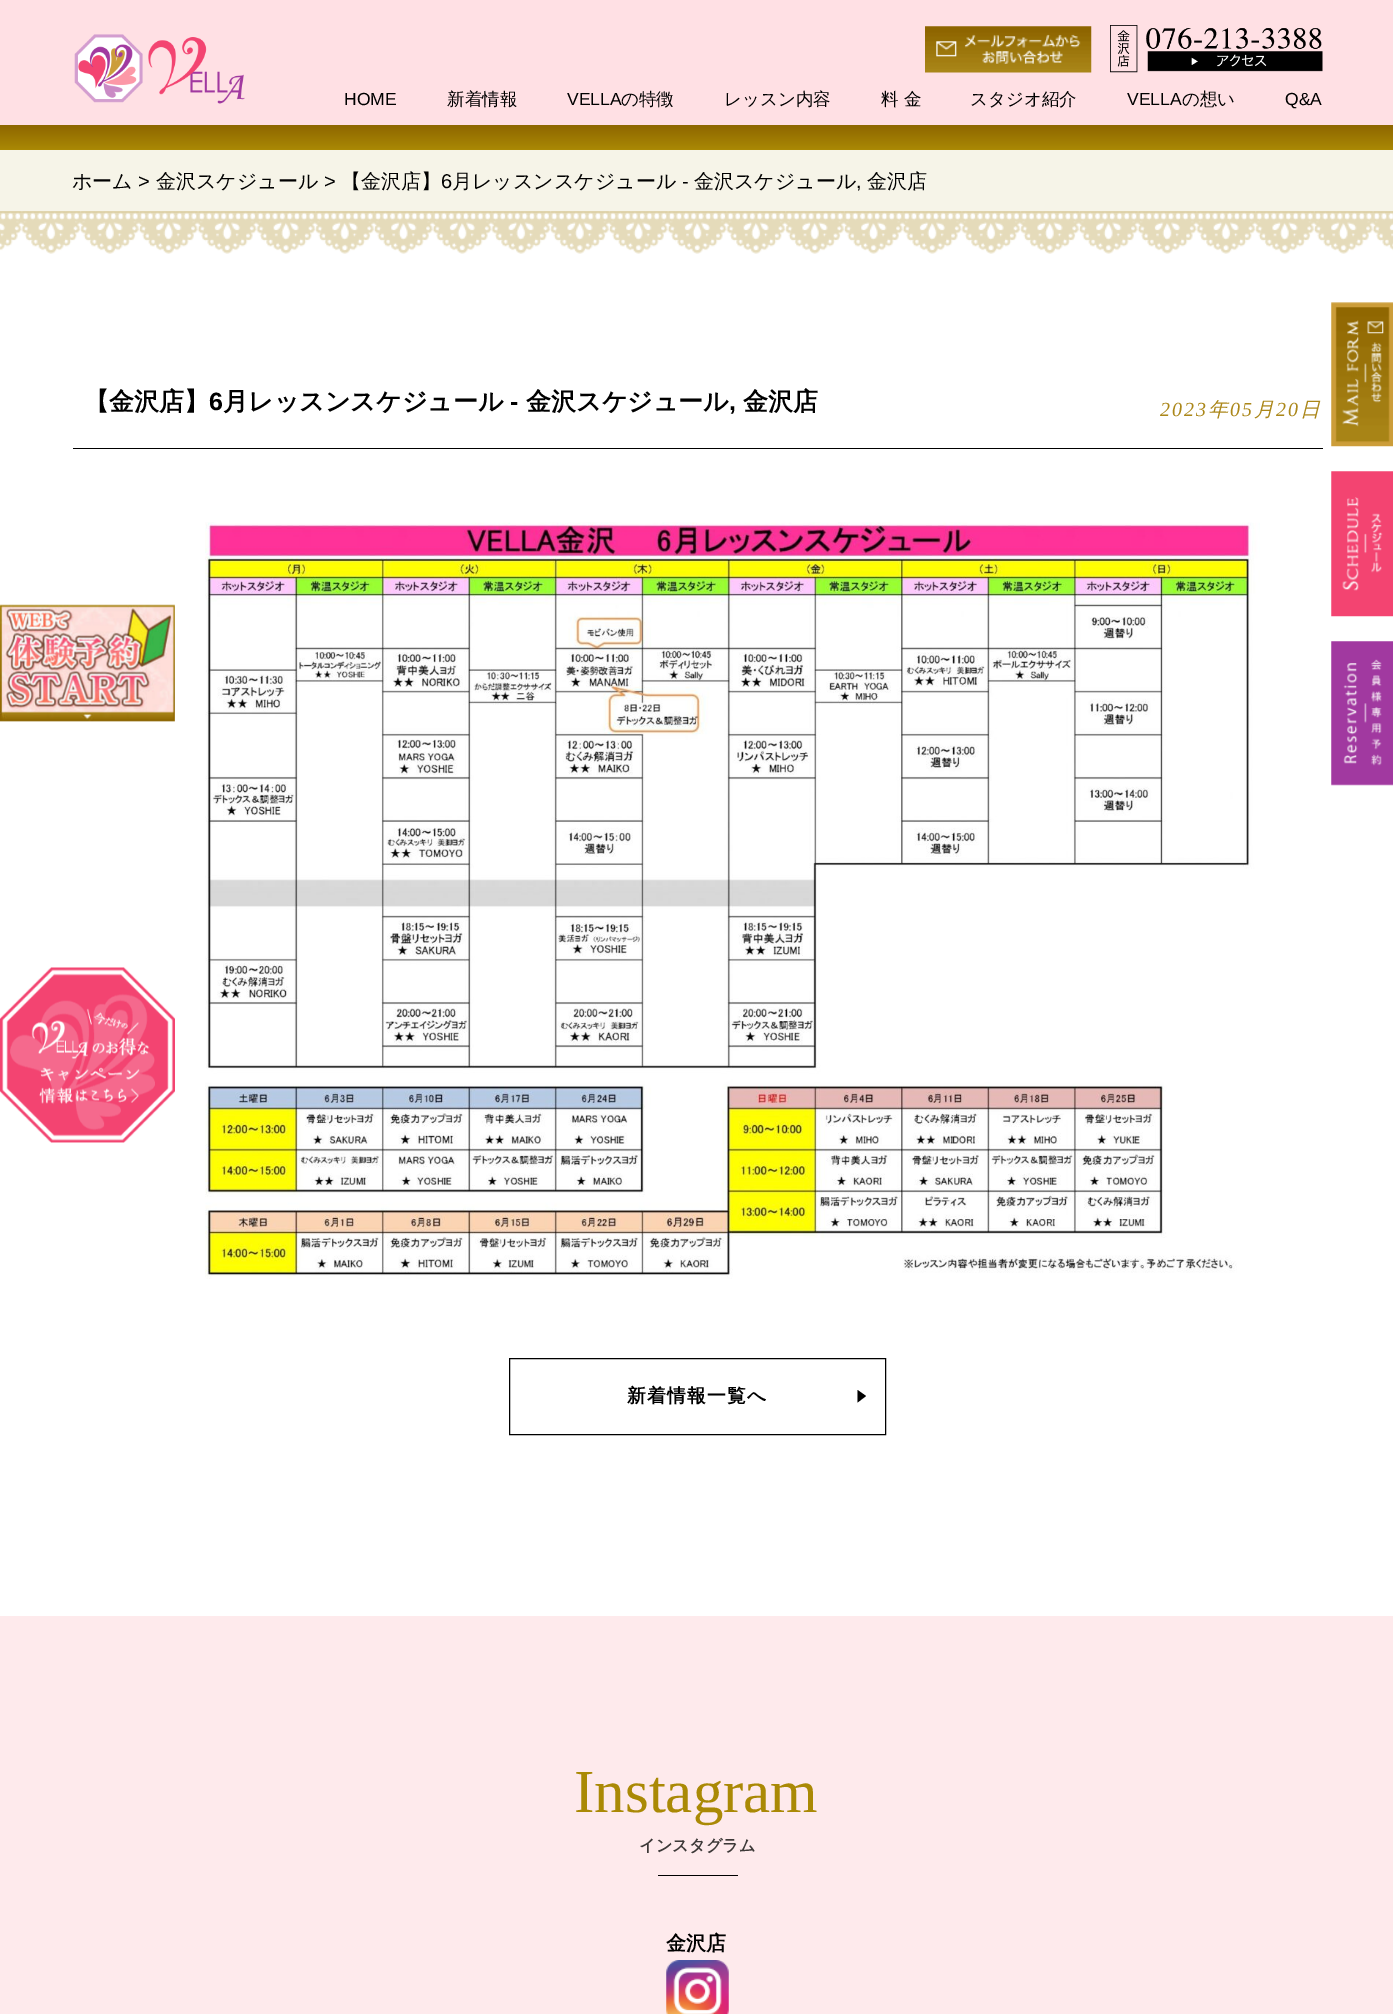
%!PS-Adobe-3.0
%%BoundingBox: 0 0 1393 2014
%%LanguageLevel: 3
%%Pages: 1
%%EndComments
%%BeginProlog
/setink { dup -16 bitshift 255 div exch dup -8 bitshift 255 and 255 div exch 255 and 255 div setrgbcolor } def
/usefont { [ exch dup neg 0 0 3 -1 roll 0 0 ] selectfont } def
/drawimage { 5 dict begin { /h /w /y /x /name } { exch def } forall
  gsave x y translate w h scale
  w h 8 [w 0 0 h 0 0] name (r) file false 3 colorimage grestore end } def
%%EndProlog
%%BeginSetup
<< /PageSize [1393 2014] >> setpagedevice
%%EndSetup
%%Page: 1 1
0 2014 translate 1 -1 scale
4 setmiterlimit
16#FFFFFF setink
0 0 1393 2014 rectfill
16#FFE0E4 setink
0 0 1393 125 rectfill
(img1.raw) 74 34 171 70 drawimage
(img2.raw) 925 26 167 47 drawimage
(img3.raw) 1110 25 212 48 drawimage
(img4.raw) 1147 51 176 21 drawimage
/LiberationSans-Regular 17.5 usefont
16#000000 setink
344 105 moveto (HOME) show
/WenQuanYiZenHei-Medium 17.5 usefont
447 105 moveto (新着情報) show
/LiberationSans-Regular 17.5 usefont
567 105 moveto (VELLA) show
/WenQuanYiZenHei-Medium 17.5 usefont
[
    [(の特徴) 621 105]
    [(レッスン内容) 724 105]
    [(料 金) 881 105]
    [(スタジオ紹介) 970 105]
] { aload pop moveto show } forall
/LiberationSans-Regular 17.5 usefont
1127 105 moveto (VELLA) show
/WenQuanYiZenHei-Medium 17.5 usefont
1182 105 moveto (の想い) show
/LiberationSans-Regular 17.5 usefont
1285 105 moveto (Q&A) show
gsave 0 125 moveto 1393 125 lineto 1393 150 lineto 0 150 lineto closepath clip newpath
<< /ShadingType 2 /ColorSpace /DeviceRGB /Coords [697 125 697 150] /Extend [true true] /Function << /FunctionType 2 /Domain [0 1] /C0 [0.557 0.4 0] /C1 [0.667 0.537 0.02] /N 1 >> >> shfill grestore
16#F6F4E8 setink
0 150 1393 61 rectfill
/WenQuanYiZenHei-Medium 20 usefont
16#000000 setink
72 188 moveto (ホーム) show
/LiberationSans-Regular 20 usefont
138 188 moveto (>) show
/WenQuanYiZenHei-Medium 20 usefont
156 188 moveto (金沢スケジュール) show
/LiberationSans-Regular 20 usefont
324 188 moveto (>) show
/WenQuanYiZenHei-Medium 20 usefont
341 188 moveto (【金沢店】) show
/LiberationSans-Regular 20 usefont
441 188 moveto (6) show
/WenQuanYiZenHei-Medium 20 usefont
452 188 moveto (月レッスンスケジュール) show
/LiberationSans-Regular 20 usefont
682 188 moveto (-) show
/WenQuanYiZenHei-Medium 20 usefont
694 188 moveto (金沢スケジュール) show
867 188 moveto (金沢店) show
/LiberationSans-Regular 20 usefont
856 188 moveto (,) show
(img5.raw) 0 211 1393 43 drawimage
73 448 1250 1 rectfill
/WenQuanYiZenHei-Bold 25 usefont
84 410 moveto (【金沢店】) show
/LiberationSans-Bold 25 usefont
209 410 moveto (6) show
/WenQuanYiZenHei-Bold 25 usefont
223 410 moveto (月レッスンスケジュール) show
/LiberationSans-Bold 25 usefont
510 410 moveto (-) show
/WenQuanYiZenHei-Bold 25 usefont
526 410 moveto (金沢スケジュール) show
743 410 moveto (金沢店) show
/LiberationSans-Bold 25 usefont
729 410 moveto (,) show
/LiberationSerif-Italic 20 usefont
16#AB8719 setink
1160 416 moveto 2 0 (2023) ashow
/WenQuanYiZenHei-MediumItalic 20 usefont
1208 416 moveto 2 0 (年) ashow
/LiberationSerif-Italic 20 usefont
1230 416 moveto 2 0 (05) ashow
/WenQuanYiZenHei-MediumItalic 20 usefont
1254 416 moveto 2 0 (月) ashow
/LiberationSerif-Italic 20 usefont
1276 416 moveto 2 0 (20) ashow
/WenQuanYiZenHei-MediumItalic 20 usefont
1300 416 moveto 2 0 (日) ashow
(img6.raw) 205 522 1055 757 drawimage
16#000000 setink
509.5 1358.5 376 76 rectstroke
/WenQuanYiZenHei-Bold 18.75 usefont
627 1402 moveto 1.25 0 (新着情報一覧へ) ashow
857.5 1402.5 moveto 857.5 1390 lineto 866 1396 lineto closepath fill
(img7.raw) 1331 302 62 145 drawimage
(img8.raw) 1331 471 62 146 drawimage
(img9.raw) 1331 641 62 145 drawimage
(img10.raw) 0 604 175 118 drawimage
(img11.raw) 0 967 175 176 drawimage
16#FEEAEC setink
0 1616 1393 398 rectfill
/LiberationSerif-Regular 61 usefont
16#AA8905 setink
574 1812 moveto (Instagram) show
/WenQuanYiZenHei-Bold 16.25 usefont
16#3D3938 setink
639 1851 moveto (インスタグラム) show
16#000000 setink
658 1875 80 1 rectfill
/WenQuanYiZenHei-Bold 20 usefont
666 1950 moveto (金沢店) show
(img12.raw) 666 1960 63 54 drawimage
showpage
%%EOF
